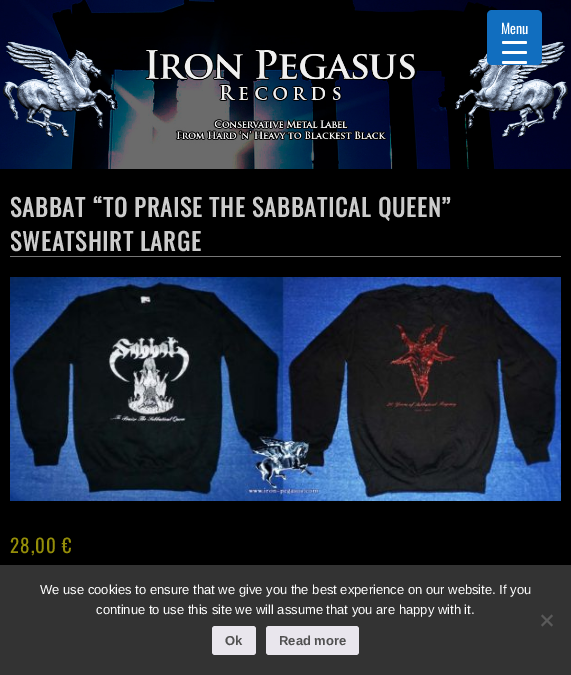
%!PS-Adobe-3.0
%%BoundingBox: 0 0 571 675
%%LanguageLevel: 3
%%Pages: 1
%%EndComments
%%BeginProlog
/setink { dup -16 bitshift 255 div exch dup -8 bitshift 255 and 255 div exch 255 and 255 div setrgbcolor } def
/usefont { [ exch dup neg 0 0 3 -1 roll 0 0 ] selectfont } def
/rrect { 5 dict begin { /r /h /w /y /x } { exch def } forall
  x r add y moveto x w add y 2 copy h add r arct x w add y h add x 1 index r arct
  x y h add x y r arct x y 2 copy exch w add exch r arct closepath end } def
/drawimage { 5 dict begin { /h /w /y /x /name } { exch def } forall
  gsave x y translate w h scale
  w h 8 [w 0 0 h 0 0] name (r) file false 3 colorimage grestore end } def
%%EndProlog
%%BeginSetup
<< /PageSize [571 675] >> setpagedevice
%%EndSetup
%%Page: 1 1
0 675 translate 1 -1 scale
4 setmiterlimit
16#000000 setink
0 0 571 675 rectfill
(img1.raw) 0 0 571 169 drawimage
16#116EBF setink
487 10 55 55 5 rrect fill
/Oswald-Regular 14 usefont
16#FFFFFF setink
501 34 moveto (Menu) show
502 51 25 3 1.5 rrect fill
502 41 25 3 1.5 rrect fill
502 61 25 3 1.5 rrect fill
16#777777 setink
10 256 551 1 rectfill
/Oswald-Bold 24 usefont
16#CCCCCC setink
10 217 moveto 1 0 (SABBAT “TO PRAISE THE SABBATICAL QUEEN”) ashow
10 251 moveto 1 0 (SWEATSHIRT LARGE) ashow
(img2.raw) 10 277 551 224 drawimage
/Oswald-Regular 19 usefont
16#958E09 setink
10 553 moveto 1 0 (28,00 €) ashow
16#333333 setink
0 565 571 110 rectfill
/LiberationSans-Regular 13 usefont
16#FFFFFF setink
40 594 moveto (We use cookies to ensure that we give you the best experience on our website. If you) show
96 614 moveto (continue to use this site we will assume that you are happy with it.) show
16#5A5A5A setink
551.5 614.5 moveto 553 616 lineto 542.5 626.5 lineto 541 625 lineto closepath fill
541 616 moveto 542.5 614.5 lineto 553 625 lineto 551.5 626.5 lineto closepath fill
16#E9E6ED setink
212 626 44 29 3 rrect fill
/LiberationSans-Bold 13 usefont
16#515151 setink
225 645 moveto (Ok) show
16#E9E6ED setink
266 626 93 29 3 rrect fill
16#515151 setink
279 645 moveto (Read more) show
showpage
%%EOF
